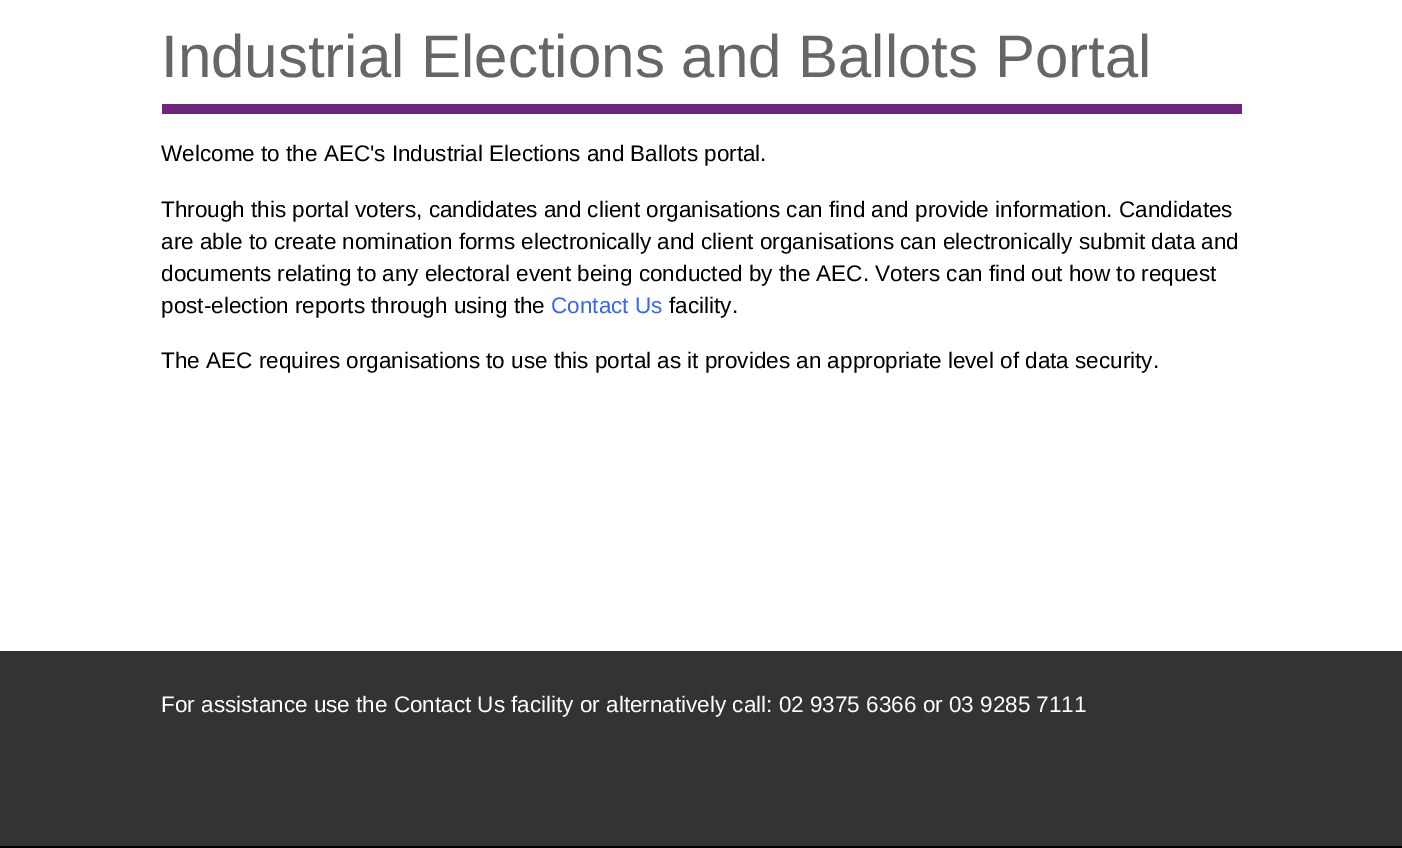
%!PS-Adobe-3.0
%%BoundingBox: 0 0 1402 848
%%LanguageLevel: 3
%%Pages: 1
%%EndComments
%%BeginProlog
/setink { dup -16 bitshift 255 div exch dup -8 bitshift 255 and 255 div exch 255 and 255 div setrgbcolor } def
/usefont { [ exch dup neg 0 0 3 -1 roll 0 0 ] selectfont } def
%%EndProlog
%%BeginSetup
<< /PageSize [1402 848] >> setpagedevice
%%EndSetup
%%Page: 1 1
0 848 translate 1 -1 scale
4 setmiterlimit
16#FFFFFF setink
0 0 1402 848 rectfill
16#6E267B setink
162 104 1080 10 rectfill
/LiberationSans-Regular 60 usefont
16#666666 setink
161 77 moveto (Industrial Elections and Ballots Portal) show
/LiberationSans-Regular 22.5 usefont
16#000000 setink
[
    [(Welcome to the AEC's Industrial Elections and Ballots portal.) 161 161]
    [(Through this portal voters, candidates and client organisations can find and provide information. Candidates) 161 217]
    [(are able to create nomination forms electronically and client organisations can electronically submit data and) 161 249]
    [(documents relating to any electoral event being conducted by the AEC. Voters can find out how to request) 161 281]
    [(post-election reports through using the) 161 313]
] { aload pop moveto show } forall
16#3366FF setink
551 313 moveto (Contact Us) show
16#000000 setink
669 313 moveto (facility.) show
161 368 moveto (The AEC requires organisations to use this portal as it provides an appropriate level of data security.) show
16#333333 setink
0 651 1402 195 rectfill
16#FFFFFF setink
161 712 moveto (For assistance use the Contact Us facility or alternatively call: 02 9375 6366 or 03 9285 7111) show
16#000000 setink
0 846 1402 2 rectfill
showpage
%%EOF
